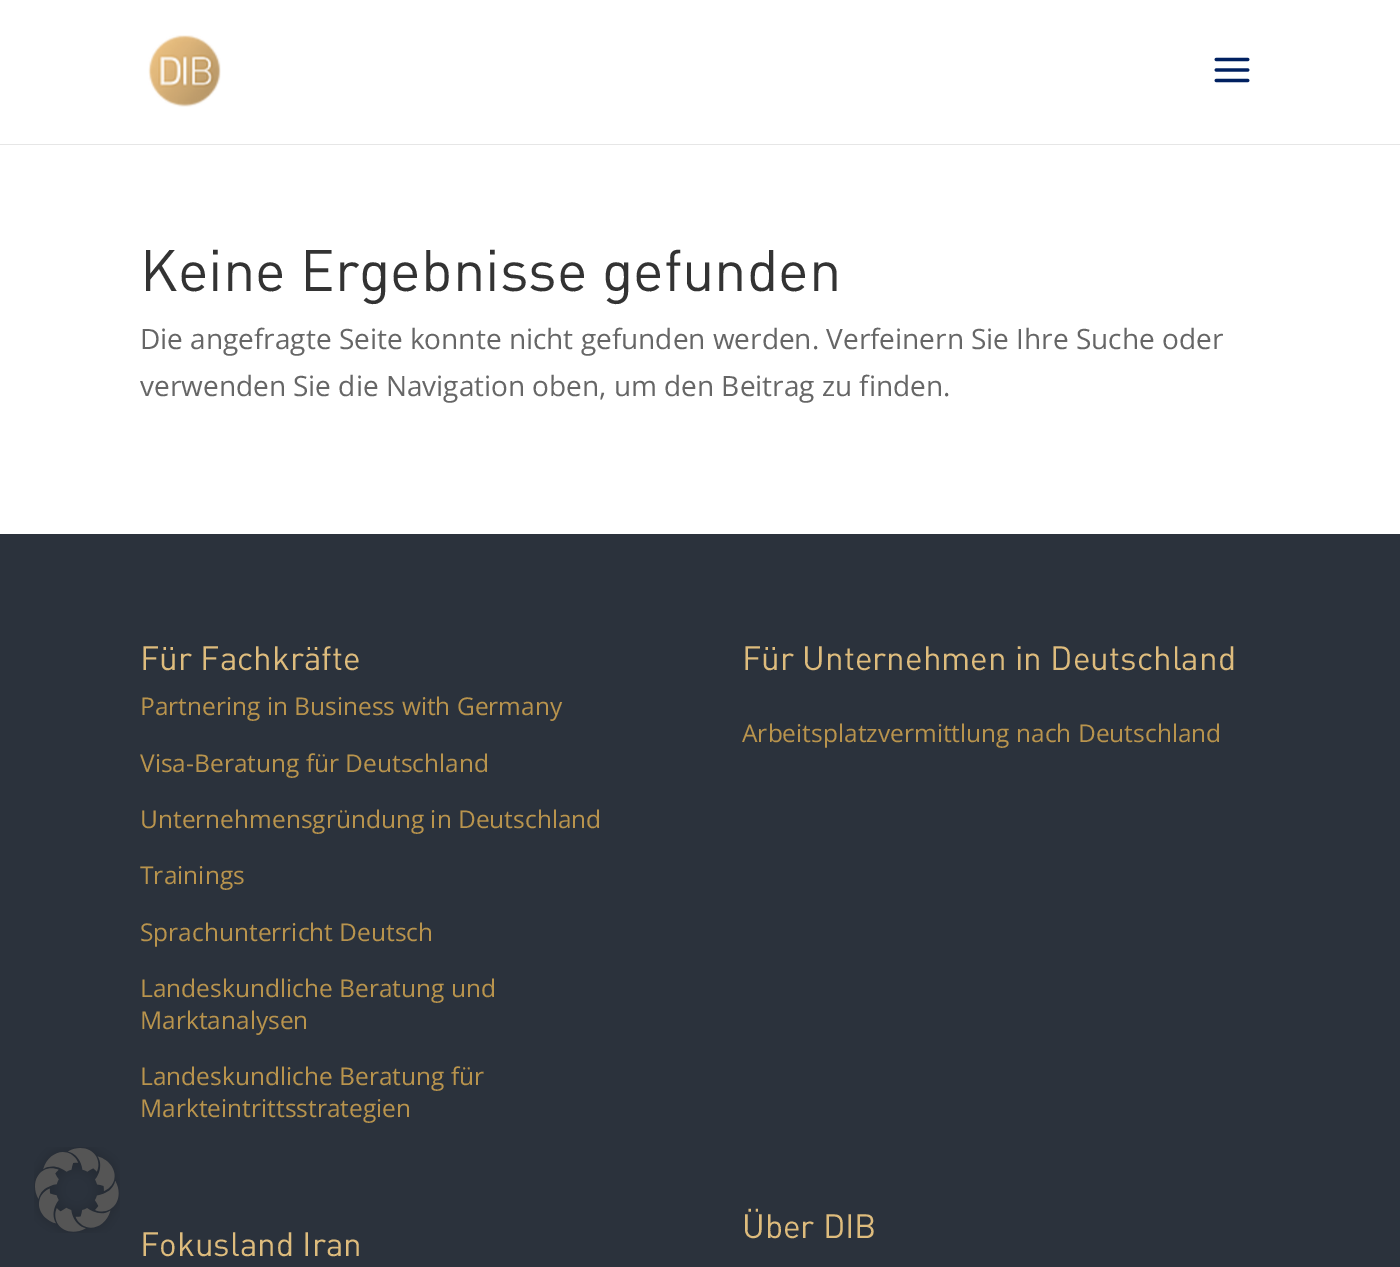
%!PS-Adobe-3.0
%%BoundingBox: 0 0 1400 1267
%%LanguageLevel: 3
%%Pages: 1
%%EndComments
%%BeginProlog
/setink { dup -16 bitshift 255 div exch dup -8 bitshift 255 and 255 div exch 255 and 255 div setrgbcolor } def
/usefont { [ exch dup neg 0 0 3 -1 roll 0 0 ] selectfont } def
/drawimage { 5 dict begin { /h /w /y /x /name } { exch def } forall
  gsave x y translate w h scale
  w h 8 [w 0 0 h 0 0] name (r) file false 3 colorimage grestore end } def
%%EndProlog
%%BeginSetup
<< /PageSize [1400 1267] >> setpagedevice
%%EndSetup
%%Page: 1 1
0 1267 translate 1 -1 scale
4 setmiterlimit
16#FFFFFF setink
0 0 1400 1267 rectfill
16#2B323C setink
0 534 1400 733 rectfill
(img1.raw) 34 1147 86 86 drawimage
16#E6E6E6 setink
0 144 1400 1 rectfill
(img2.raw) 148 35 73 72 drawimage
(img3.raw) 1214 57 36 26 drawimage
/DIN-Regular 57.75 usefont
16#333333 setink
140 291 moveto (Keine Ergebnisse gefunden) show
/OpenSans-Regular 28 usefont
16#666666 setink
140 349 moveto (Die angefragte Seite konnte nicht gefunden werden. Verfeinern Sie Ihre Suche oder) show
140 396 moveto (verwenden Sie die Navigation oben, um den Beitrag zu finden.) show
/DIN-Regular 33.25 usefont
16#DEBC7D setink
140 670 moveto (Für Fachkräfte) show
/OpenSans-Regular 24.5 usefont
16#B9944D setink
[
    [(Partnering in Business with Germany) 140 715]
    [(Visa-Beratung für Deutschland) 140 772]
    [(Unternehmensgründung in Deutschland) 140 828]
    [(Trainings) 140 884]
    [(Sprachunterricht Deutsch) 140 941]
    [(Landeskundliche Beratung und) 140 997]
    [(Marktanalysen) 140 1029]
    [(Landeskundliche Beratung für) 140 1085]
    [(Markteintrittsstrategien) 140 1117]
] { aload pop moveto show } forall
/DIN-Regular 33.25 usefont
16#DEBC7D setink
742 670 moveto (Für Unternehmen in Deutschland) show
/OpenSans-Regular 24.5 usefont
16#B9944D setink
742 742 moveto (Arbeitsplatzvermittlung nach Deutschland) show
/DIN-Regular 33.25 usefont
16#DEBC7D setink
742 1238 moveto (Über DIB) show
140 1256 moveto (Fokusland Iran) show
showpage
%%EOF
